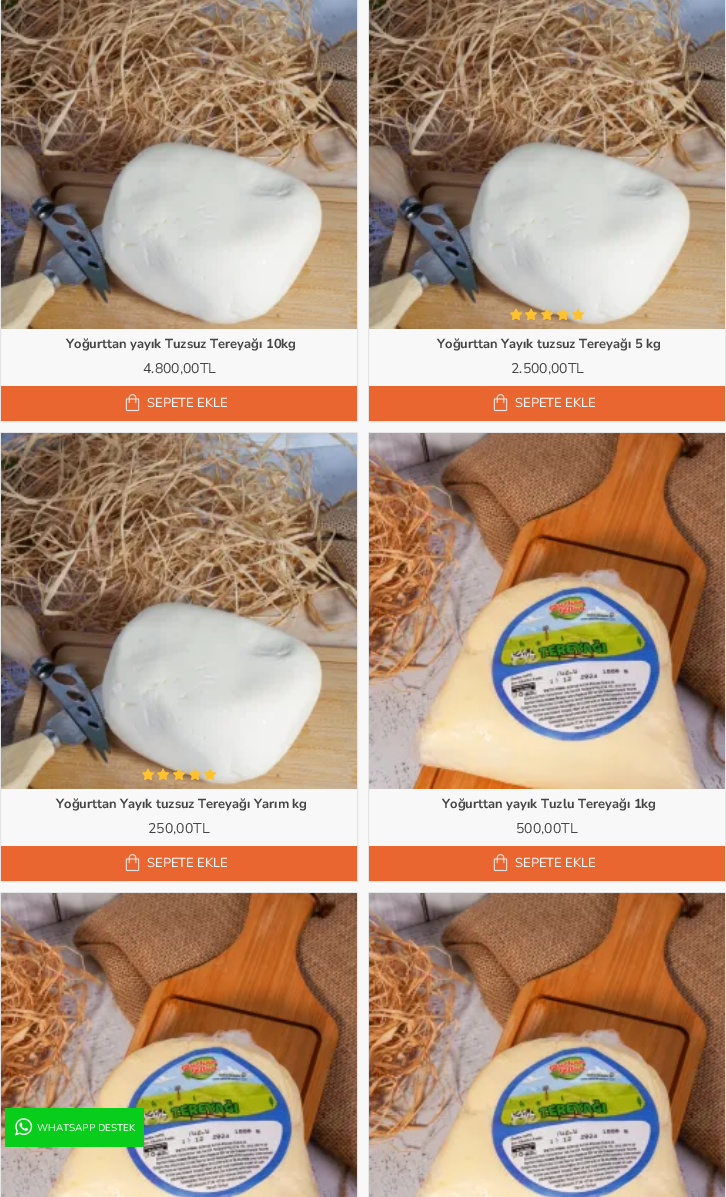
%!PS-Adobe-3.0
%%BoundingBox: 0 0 726 1197
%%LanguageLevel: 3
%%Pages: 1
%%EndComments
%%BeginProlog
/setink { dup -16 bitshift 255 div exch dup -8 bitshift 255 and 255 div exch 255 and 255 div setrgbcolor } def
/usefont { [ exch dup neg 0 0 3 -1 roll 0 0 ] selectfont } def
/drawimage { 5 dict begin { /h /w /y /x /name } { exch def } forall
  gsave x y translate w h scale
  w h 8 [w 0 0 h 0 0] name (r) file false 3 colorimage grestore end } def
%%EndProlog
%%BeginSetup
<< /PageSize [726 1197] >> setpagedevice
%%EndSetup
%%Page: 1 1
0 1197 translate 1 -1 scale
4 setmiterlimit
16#F8F8F8 setink
0 0 726 1197 rectfill
16#E5E5E5 setink
0.5 -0.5 357 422 rectstroke
(img1.raw) 1 0 356 329 drawimage
/NunitoSans-Bold 13 usefont
16#444444 setink
66 348 moveto (Yoğurttan yayık Tuzsuz Tereyağı 10kg) show
/NunitoSans-Regular 14 usefont
143 373 moveto (4.800,00TL) show
16#E96631 setink
1 386 356 35 rectfill
(img2.raw) 125 394 15 18 drawimage
/NunitoSans-Regular 13 usefont
16#FFFFFF setink
147 407 moveto (SEPETE EKLE) show
16#E5E5E5 setink
368.5 -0.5 357 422 rectstroke
(img3.raw) 369 0 356 329 drawimage
(img4.raw) 510 308 12 12 drawimage
(img5.raw) 510 308 12 12 drawimage
(img6.raw) 525 308 12 12 drawimage
(img7.raw) 525 308 12 12 drawimage
(img8.raw) 541 308 12 12 drawimage
(img9.raw) 541 308 12 12 drawimage
(img10.raw) 557 308 12 12 drawimage
(img11.raw) 557 308 12 12 drawimage
(img12.raw) 572 308 12 13 drawimage
(img13.raw) 572 308 12 12 drawimage
/NunitoSans-Bold 13 usefont
16#444444 setink
437 348 moveto (Yoğurttan Yayık tuzsuz Tereyağı 5 kg) show
/NunitoSans-Regular 14 usefont
511 373 moveto (2.500,00TL) show
16#E96631 setink
369 386 356 35 rectfill
(img2.raw) 493 394 15 18 drawimage
/NunitoSans-Regular 13 usefont
16#FFFFFF setink
515 407 moveto (SEPETE EKLE) show
16#E5E5E5 setink
0.5 432.5 357 449 rectstroke
(img14.raw) 1 433 356 356 drawimage
(img4.raw) 142 768 12 12 drawimage
(img5.raw) 142 768 12 12 drawimage
(img6.raw) 157 768 12 12 drawimage
(img7.raw) 157 768 12 12 drawimage
(img8.raw) 173 768 12 12 drawimage
(img9.raw) 173 768 12 12 drawimage
(img10.raw) 189 768 12 12 drawimage
(img11.raw) 189 768 12 12 drawimage
(img12.raw) 204 768 12 13 drawimage
(img13.raw) 204 768 12 12 drawimage
/NunitoSans-Bold 13 usefont
16#444444 setink
56 808 moveto (Yoğurttan Yayık tuzsuz Tereyağı Yarım kg) show
/NunitoSans-Regular 14 usefont
148 833 moveto (250,00TL) show
16#E96631 setink
1 846 356 35 rectfill
(img2.raw) 125 854 15 18 drawimage
/NunitoSans-Regular 13 usefont
16#FFFFFF setink
147 867 moveto (SEPETE EKLE) show
16#E5E5E5 setink
368.5 432.5 357 449 rectstroke
(img15.raw) 369 433 356 356 drawimage
/NunitoSans-Bold 13 usefont
16#444444 setink
442 808 moveto (Yoğurttan yayık Tuzlu Tereyağı 1kg) show
/NunitoSans-Regular 14 usefont
516 833 moveto (500,00TL) show
16#E96631 setink
369 846 356 35 rectfill
(img2.raw) 493 854 15 18 drawimage
/NunitoSans-Regular 13 usefont
16#FFFFFF setink
515 867 moveto (SEPETE EKLE) show
16#E5E5E5 setink
0.5 892.5 357 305 rectstroke
(img16.raw) 1 893 356 304 drawimage
368.5 892.5 357 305 rectstroke
(img17.raw) 369 893 356 304 drawimage
16#08CE1B setink
5 1108 139 39 rectfill
(img18.raw) 15 1118 18 18 drawimage
/NunitoSans-Regular 10 usefont
16#FFFFFF setink
37 1131 moveto (WHATSAPP DESTEK) show
showpage
%%EOF
